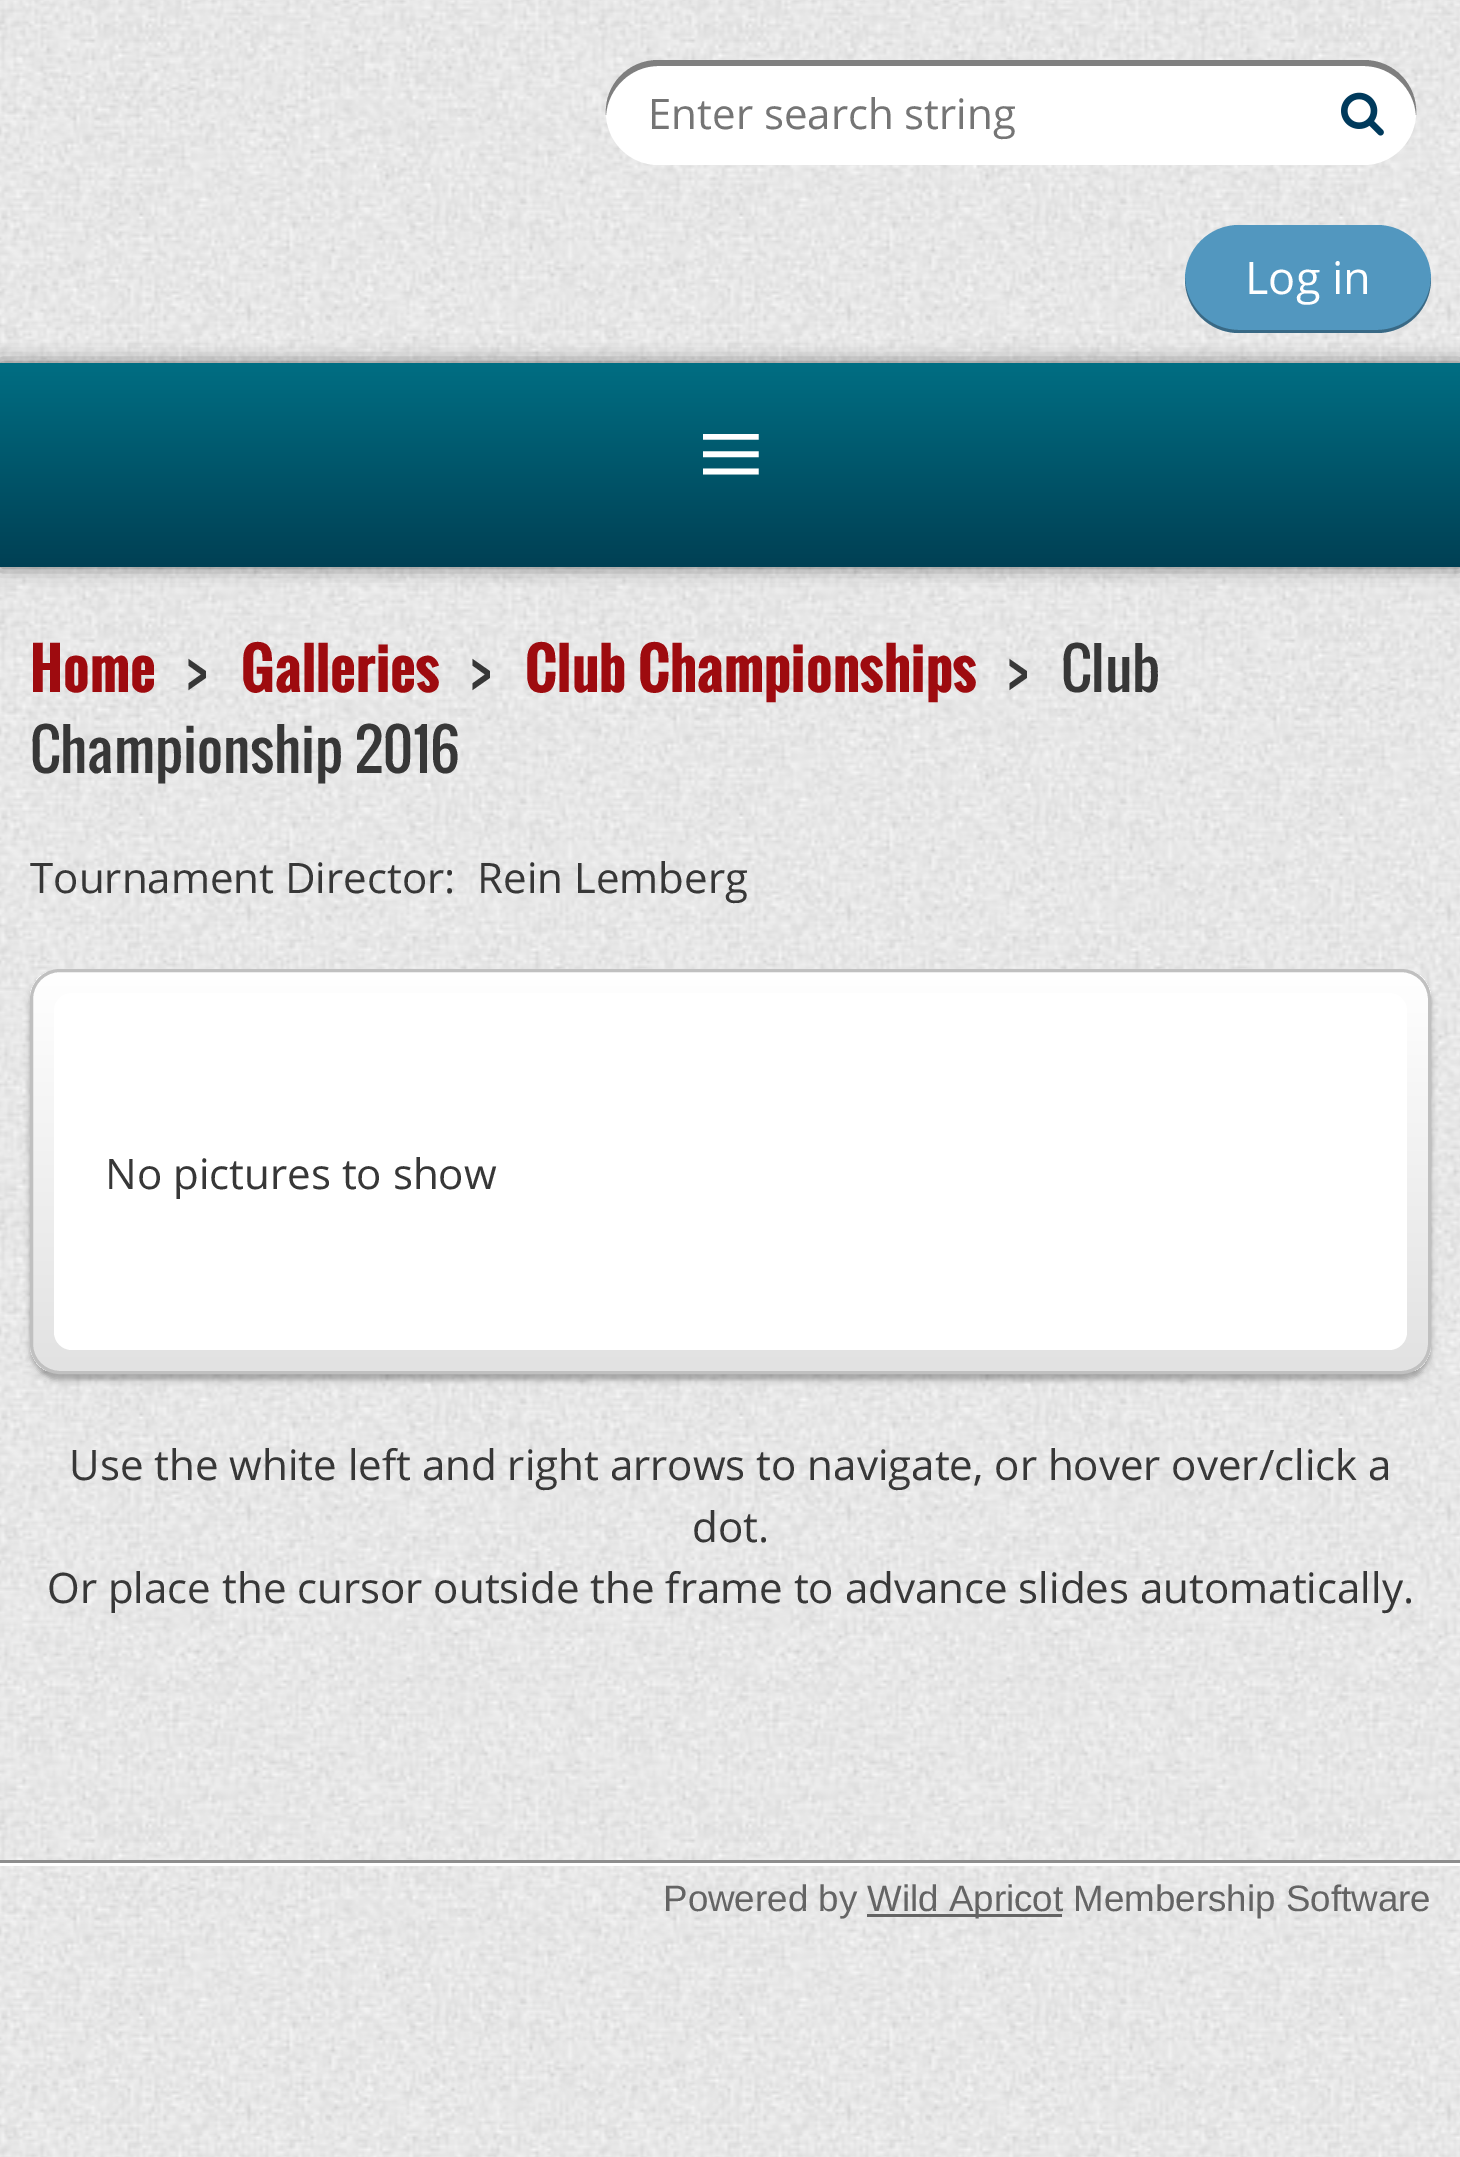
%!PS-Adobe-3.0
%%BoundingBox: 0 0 1460 2157
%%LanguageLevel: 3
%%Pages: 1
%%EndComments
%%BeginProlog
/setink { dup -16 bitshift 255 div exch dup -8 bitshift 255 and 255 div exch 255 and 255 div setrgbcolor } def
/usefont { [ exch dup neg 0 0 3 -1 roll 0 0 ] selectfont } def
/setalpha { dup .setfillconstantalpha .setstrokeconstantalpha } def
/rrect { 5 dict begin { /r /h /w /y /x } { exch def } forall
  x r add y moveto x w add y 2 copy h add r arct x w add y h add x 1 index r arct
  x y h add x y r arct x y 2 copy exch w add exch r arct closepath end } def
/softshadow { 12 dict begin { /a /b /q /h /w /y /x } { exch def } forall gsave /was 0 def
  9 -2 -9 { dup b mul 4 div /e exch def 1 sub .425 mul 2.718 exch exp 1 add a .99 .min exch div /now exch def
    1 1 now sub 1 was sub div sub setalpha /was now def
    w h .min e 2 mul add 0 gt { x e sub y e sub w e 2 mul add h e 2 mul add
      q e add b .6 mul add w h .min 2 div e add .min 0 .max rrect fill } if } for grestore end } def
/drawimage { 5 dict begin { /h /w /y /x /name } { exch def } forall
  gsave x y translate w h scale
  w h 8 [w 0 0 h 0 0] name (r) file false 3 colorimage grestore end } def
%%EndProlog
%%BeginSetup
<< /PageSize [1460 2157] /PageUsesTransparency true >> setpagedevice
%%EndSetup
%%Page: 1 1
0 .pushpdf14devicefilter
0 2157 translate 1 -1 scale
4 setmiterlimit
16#FFFFFF setink
0 0 1460 2157 rectfill
(img1.raw) 0 0 1460 2157 drawimage
606 60 810 105 52.5 rrect fill
0.5 setalpha
16#000000 setink
658 66 moveto 1364 66 lineto 1391 66 1414 88 1416 115 curveto 1418 85 1394 60 1364 60 curveto 658 60 lineto 628 60 604 85 606 115 curveto 608 88 631 66 658 66 curveto closepath fill
/OpenSans-Regular 42 usefont
1 setalpha
16#757575 setink
648 129 moveto (Enter search string) show
(img2.raw) 1341 92 43 44 drawimage
16#5297BF setink
1185 225 246 108 54 rrect fill
0.3 setalpha
16#000000 setink
1185 278 moveto 1185 279 lineto 1185 309 1209 333 1239 333 curveto 1377 333 lineto 1407 333 1431 309 1431 279 curveto 1431 278 lineto 1430 307 1406 330 1377 330 curveto 1239 330 lineto 1210 330 1186 307 1185 278 curveto closepath fill
/OpenSans-Regular 45 usefont
1 setalpha
16#FFFFFF setink
1245 294 moveto (Log in) show
16#000000 setink
0 363 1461 204 0 9 0.5 softshadow
gsave 0 363 moveto 1460 363 lineto 1460 567 lineto 0 567 lineto closepath clip newpath
<< /ShadingType 2 /ColorSpace /DeviceRGB /Coords [731 363 731 567] /Extend [true true] /Function << /FunctionType 2 /Domain [0 1] /C0 [0 0.431 0.514] /C1 [0 0.251 0.329] /N 1 >> >> shfill grestore
/LiberationSerif-Regular 120 usefont
16#FFFFFF setink
697 494 moveto (≡) show
/Oswald-Bold 56 usefont
16#9E0B0F setink
30 692 moveto (Home) show
/Oswald-Regular 56 usefont
16#373737 setink
185 692 moveto (>) show
/Oswald-Bold 56 usefont
16#9E0B0F setink
241 692 moveto (Galleries) show
/Oswald-Regular 56 usefont
16#373737 setink
469 692 moveto (>) show
/Oswald-Bold 56 usefont
16#9E0B0F setink
525 692 moveto (Club Championships) show
/Oswald-Regular 56 usefont
16#373737 setink
[
    [(>) 1006 692]
    [(Club) 1061 692]
    [(Championship 2016) 30 773]
] { aload pop moveto show } forall
/OpenSans-Regular 42 usefont
30 893 moveto (Tournament Director:  Rein Lemberg) show
16#000000 setink
30 975 1401 405 30 3 0.3 softshadow
gsave
30 969 1401 405 30 rrect clip newpath
gsave 30 972 moveto 1431 972 lineto 1431 1371 lineto 30 1371 lineto closepath clip newpath
<< /ShadingType 2 /ColorSpace /DeviceRGB /Coords [731 972 731 1371] /Extend [true true] /Function << /FunctionType 2 /Domain [0 1] /C0 [1 1 1] /C1 [0.886 0.886 0.886] /N 1 >> >> shfill grestore
grestore
16#C0C0C0 setink
3 setlinewidth
31.5 970.5 1398 402 28.5 rrect stroke
16#FFFFFF setink
54 993 1353 357 18 rrect fill
16#373737 setink
[
    [(No pictures to show) 105 1189]
    [(Use the white left and right arrows to navigate, or hover over/click a) 69 1480]
    [(dot.) 692 1542]
    [(Or place the cursor outside the frame to advance slides automatically.) 47 1603]
] { aload pop moveto show } forall
16#8D8D8D setink
0 1860 1460 3 rectfill
16#FFFFFF setink
0 1863 1460 3 rectfill
/LiberationSans-Regular 36.75 usefont
16#646464 setink
663 1911 moveto (Powered by) show
867 1914 195 3 rectfill
867 1911 moveto (Wild Apricot Membership Software) show
.poppdf14devicefilter showpage
%%EOF
